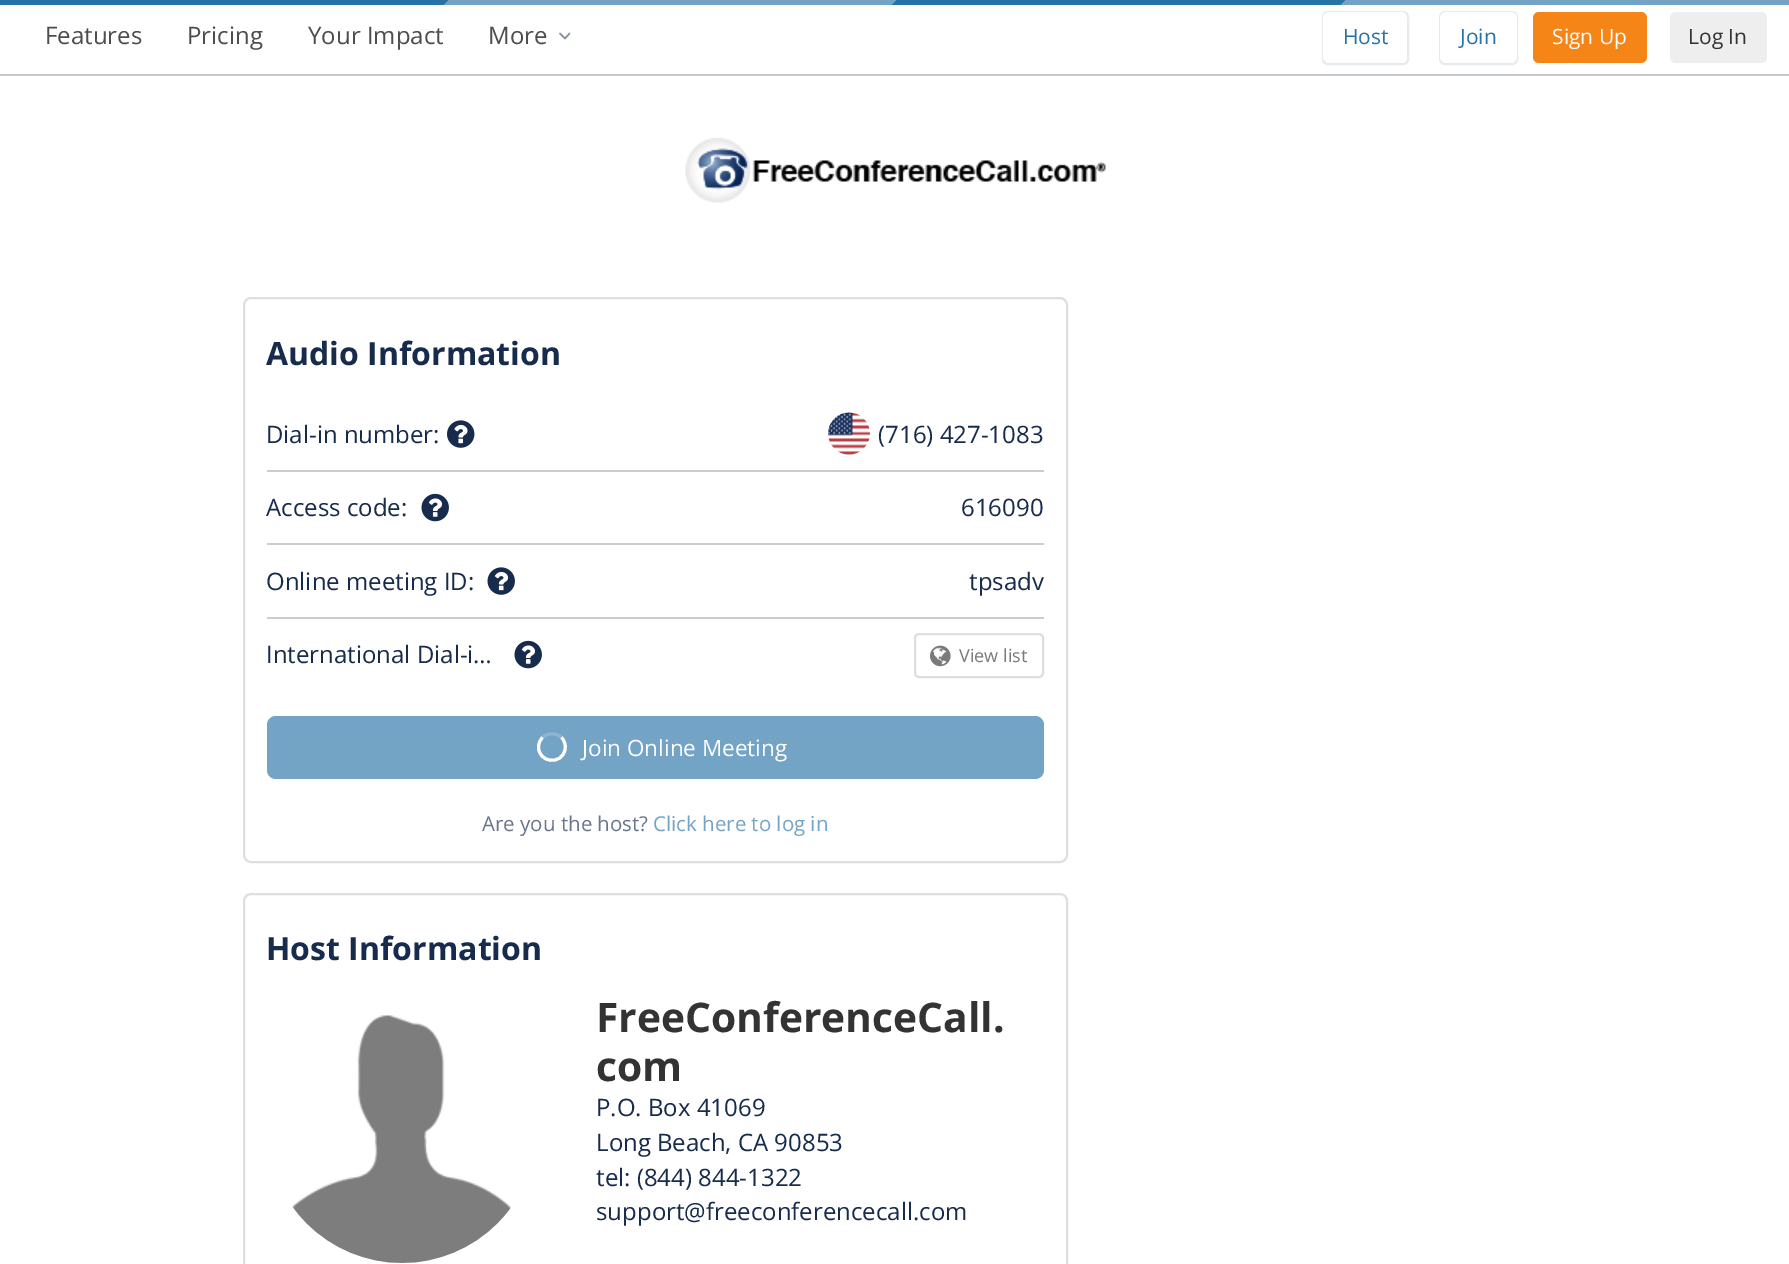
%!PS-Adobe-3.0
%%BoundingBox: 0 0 1789 1264
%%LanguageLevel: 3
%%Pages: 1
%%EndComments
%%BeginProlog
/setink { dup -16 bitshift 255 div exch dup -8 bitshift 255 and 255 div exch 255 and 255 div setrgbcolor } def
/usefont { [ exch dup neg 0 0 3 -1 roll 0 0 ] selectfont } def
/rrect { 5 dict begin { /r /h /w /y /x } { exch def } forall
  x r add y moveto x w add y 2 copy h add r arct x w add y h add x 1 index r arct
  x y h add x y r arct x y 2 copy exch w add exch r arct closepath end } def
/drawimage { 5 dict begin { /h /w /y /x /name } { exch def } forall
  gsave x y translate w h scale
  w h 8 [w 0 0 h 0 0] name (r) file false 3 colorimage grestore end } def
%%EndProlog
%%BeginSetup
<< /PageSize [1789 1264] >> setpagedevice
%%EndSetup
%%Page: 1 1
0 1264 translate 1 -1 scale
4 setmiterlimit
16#FFFFFF setink
0 0 1789 1264 rectfill
gsave 0 0 moveto 1789 0 lineto 1789 5 lineto 0 5 lineto closepath clip newpath
<< /ShadingType 2 /ColorSpace /DeviceRGB /Coords [1343 451 446 -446] /Extend [true true] /Function << /FunctionType 3 /Domain [0 1] /Functions [<< /FunctionType 2 /Domain [0 1] /C0 [0.451 0.643 0.776] /C1 [0.451 0.643 0.776] /N 1 >> << /FunctionType 2 /Domain [0 1] /C0 [0.153 0.451 0.655] /C1 [0.153 0.451 0.655] /N 1 >> << /FunctionType 2 /Domain [0 1] /C0 [0.451 0.643 0.776] /C1 [0.451 0.643 0.776] /N 1 >> << /FunctionType 2 /Domain [0 1] /C0 [0.153 0.451 0.655] /C1 [0.153 0.451 0.655] /N 1 >>] /Bounds [0.25 0.5 0.75] /Encode [0 1 0 1 0 1 0 1] >> >> shfill grestore
16#C4C9D2 setink
0 74 1789 2 rectfill
/OpenSans-Regular 24 usefont
16#4D4D4D setink
[
    [(Features) 45 44]
    [(Pricing) 187 44]
    [(Your Impact) 308 44]
    [(More) 488 44]
] { aload pop moveto show } forall
16#8993A4 setink
1.6 setlinewidth
1 setlinecap
1 setlinejoin
569.5 33.5 moveto 565 38.5 lineto 560 33.5 lineto stroke
16#E7E9ED setink
2 setlinewidth
0 setlinecap
0 setlinejoin
1323 12 85 52 5 rrect stroke
16#FFFFFF setink
1323 12 84 51 6 rrect fill
/OpenSans-Regular 21 usefont
16#2773A7 setink
1343 44 moveto (Host) show
16#E7E9ED setink
1440 12 77 52 5 rrect stroke
16#FFFFFF setink
1440 12 77 51 6 rrect fill
16#2773A7 setink
1460 44 moveto (Join) show
16#F58517 setink
1533 12 114 51 6 rrect fill
16#FFFFFF setink
1552 44 moveto (Sign Up) show
16#EEEEEE setink
1670 12 97 51 6 rrect fill
16#333333 setink
1688 44 moveto (Log In) show
(img1.raw) 685 138 421 65 drawimage
16#DFDFDF setink
244 298 823 564 7 rrect stroke
/OpenSans-Bold 32 usefont
16#172B4D setink
266 365 moveto (Audio Information) show
16#CCCCCC setink
267 470 777 2 rectfill
/OpenSans-Regular 24 usefont
16#172B4D setink
266 443 moveto (Dial-in number:) show
(img2.raw) 447 420 28 28 drawimage
(img3.raw) 828 412 42 43 drawimage
878 443 moveto (\(716\) 427-1083) show
16#CCCCCC setink
267 543 777 2 rectfill
16#172B4D setink
266 516 moveto (Access code:) show
(img4.raw) 421 493 28 29 drawimage
961 516 moveto (616090) show
16#CCCCCC setink
267 617 777 2 rectfill
16#172B4D setink
266 590 moveto (Online meeting ID:) show
(img5.raw) 487 567 28 28 drawimage
969 590 moveto (tpsadv) show
266 663 moveto (International Dial-i…) show
(img4.raw) 514 640 28 29 drawimage
16#DEDEDE setink
915 634 128 43 4 rrect stroke
(img6.raw) 930 645 21 22 drawimage
/OpenSans-Regular 18 usefont
16#7A7A7A setink
959 662 moveto (View list) show
16#73A4C6 setink
267 716 777 63 9 rrect fill
16#8FB6D1 setink
3 setlinewidth
542.5 737.5 moveto 547.5 732.5 556.5 732.5 561.5 737.5 curveto stroke
16#FFFFFF setink
561.5 737.5 moveto 564.5 740.5 566 745.5 565 749.5 curveto 562 765.5 538.5 763 538.5 747 curveto 538.5 743.5 540 740 542.5 737.5 curveto stroke
/OpenSans-Regular 22.5 usefont
582 756 moveto (Join Online Meeting) show
/OpenSans-Regular 20.5 usefont
16#68758B setink
482 831 moveto (Are you the host?) show
16#73A4C6 setink
653 831 moveto (Click here to log in) show
16#DFDFDF setink
2 setlinewidth
244 894 823 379 7 rrect stroke
/OpenSans-Bold 32 usefont
16#172B4D setink
266 960 moveto (Host Information) show
(img7.raw) 292 1015 219 248 drawimage
/OpenSans-Bold 40.75 usefont
16#333333 setink
596 1032 moveto (FreeConferenceCall.) show
596 1081 moveto (com) show
/OpenSans-Regular 24 usefont
16#172B4D setink
[
    [(P.O. Box 41069) 596 1116]
    [(Long Beach, CA 90853) 596 1151]
    [(tel: \(844\) 844-1322) 596 1186]
    [(support@freeconferencecall.com) 596 1220]
] { aload pop moveto show } forall
showpage
%%EOF
